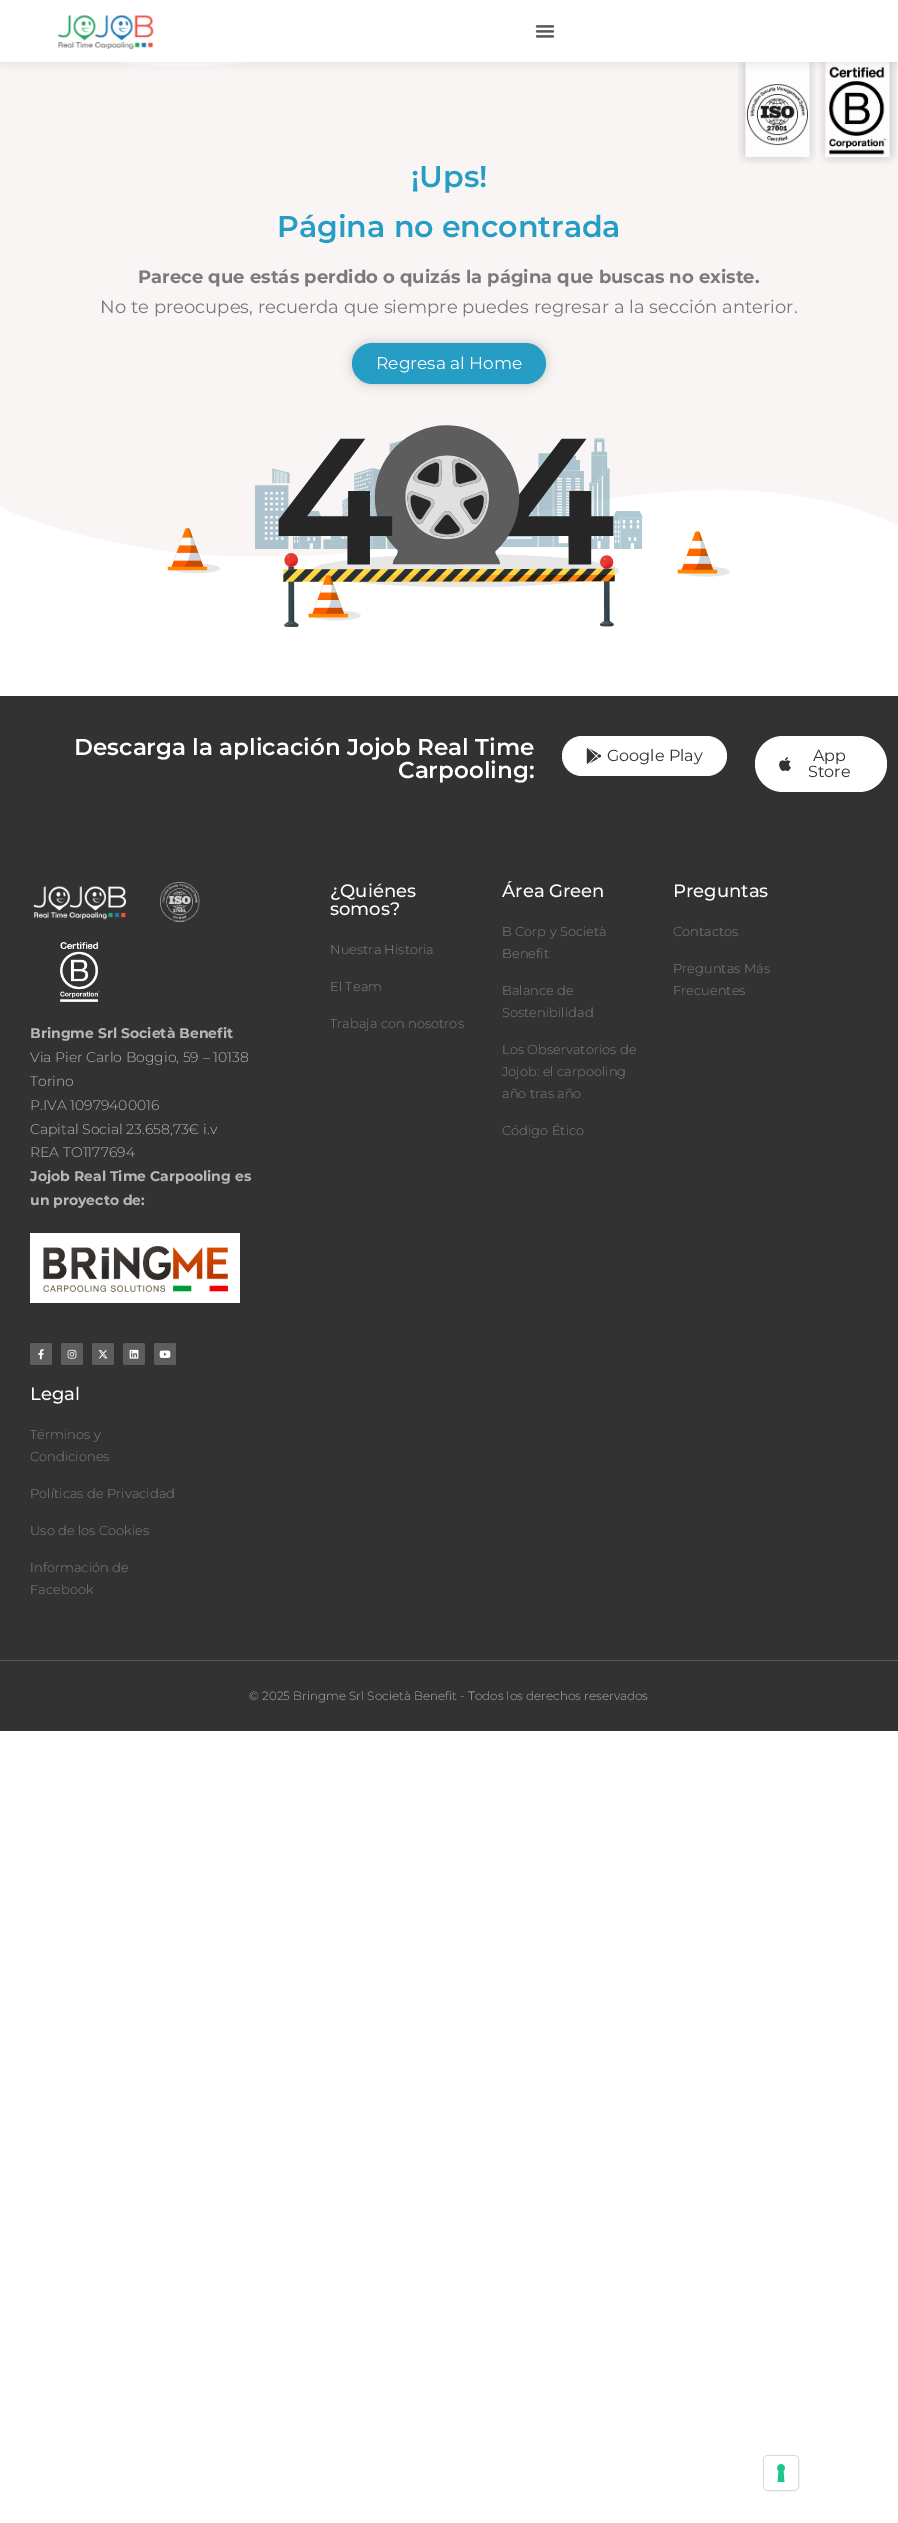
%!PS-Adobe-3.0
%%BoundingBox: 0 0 898 2523
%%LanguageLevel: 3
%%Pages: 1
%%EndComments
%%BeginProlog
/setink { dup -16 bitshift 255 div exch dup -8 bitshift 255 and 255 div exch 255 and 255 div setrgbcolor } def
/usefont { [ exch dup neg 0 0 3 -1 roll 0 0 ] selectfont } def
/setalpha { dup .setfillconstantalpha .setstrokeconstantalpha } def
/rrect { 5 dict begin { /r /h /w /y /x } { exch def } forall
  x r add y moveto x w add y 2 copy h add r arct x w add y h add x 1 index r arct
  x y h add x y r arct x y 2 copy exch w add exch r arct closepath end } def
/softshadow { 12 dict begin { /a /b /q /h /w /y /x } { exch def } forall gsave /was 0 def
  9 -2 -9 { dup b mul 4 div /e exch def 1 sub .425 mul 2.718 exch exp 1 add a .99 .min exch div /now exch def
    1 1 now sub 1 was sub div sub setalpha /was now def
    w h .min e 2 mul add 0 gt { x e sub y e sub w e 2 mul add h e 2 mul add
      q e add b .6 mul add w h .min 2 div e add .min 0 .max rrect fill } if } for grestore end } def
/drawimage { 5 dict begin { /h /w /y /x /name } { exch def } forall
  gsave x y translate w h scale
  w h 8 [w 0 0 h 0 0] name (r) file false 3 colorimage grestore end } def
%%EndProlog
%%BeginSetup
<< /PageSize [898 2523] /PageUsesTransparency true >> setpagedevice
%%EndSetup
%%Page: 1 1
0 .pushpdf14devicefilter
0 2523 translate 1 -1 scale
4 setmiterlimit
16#FFFFFF setink
0 0 898 2523 rectfill
(img1.raw) 0 62 898 494 drawimage
(img4.raw) 738 62 78 102 drawimage
(img5.raw) 819 62 78 102 drawimage
16#000000 setink
0 0 898 62 0 5 0.14 softshadow
16#FFFFFF setink
0 0 898 62 rectfill
(img2.raw) 57 14 97 35 drawimage
(img3.raw) 535 25 20 13 drawimage
/Montserrat-SemiBold 30 usefont
16#269DC4 setink
411 187 moveto (¡Ups!) show
277 237 moveto (Página no encontrada) show
/Montserrat-Bold 18 usefont
16#7A7A7A setink
138 283 moveto (Parece que estás perdido o quizás la página que buscas no existe.) show
/Montserrat-Regular 18 usefont
100 313 moveto (No te preocupes, recuerda que siempre puedes regresar a la sección anterior.) show
16#000000 setink
352 343 194 41 20.5 5 0.2 softshadow
16#269DC4 setink
352 343 194 41 20.5 rrect fill
/Montserrat-Regular 17 usefont
16#FFFFFF setink
376 369 moveto (Regresa al Home) show
(img6.raw) 167 425 563 202 drawimage
16#323232 setink
0 696 898 964 rectfill
/Montserrat-SemiBold 23 usefont
16#FFFFFF setink
74 755 moveto (Descarga la aplicación Jojob Real Time) show
398 778 moveto (Carpooling:) show
562 736 165 40 20 rrect fill
(img7.raw) 586 748 16 16 drawimage
/Montserrat-Regular 16 usefont
16#323232 setink
607 761 moveto (Google Play) show
16#FFFFFF setink
755 736 132 56 28 rrect fill
(img8.raw) 779 757 12 14 drawimage
16#323232 setink
813 761 moveto (App) show
808 777 moveto (Store) show
/Montserrat-Medium 18 usefont
16#FFFFFF setink
330 897 moveto (¿Quiénes) show
330 915 moveto (somos?) show
/Montserrat-Light 13 usefont
16#808080 setink
[
    [(Nuestra Historia) 330 954]
    [(El Team) 330 991]
    [(Trabaja con nosotros) 330 1028]
] { aload pop moveto show } forall
/Montserrat-Medium 18 usefont
16#FFFFFF setink
502 897 moveto (Área Green) show
/Montserrat-Light 13 usefont
16#808080 setink
[
    [(B Corp y Società) 502 936]
    [(Benefit) 502 958]
    [(Balance de) 502 995]
    [(Sostenibilidad) 502 1017]
    [(Los Observatorios de) 502 1054]
    [(Jojob: el carpooling) 502 1076]
    [(año tras año) 502 1098]
    [(Código Ético) 502 1135]
] { aload pop moveto show } forall
/Montserrat-Medium 18 usefont
16#FFFFFF setink
673 897 moveto (Preguntas) show
/Montserrat-Light 13 usefont
16#808080 setink
[
    [(Contactos) 673 936]
    [(Preguntas Más) 673 973]
    [(Frecuentes) 673 995]
] { aload pop moveto show } forall
(img9.raw) 33 886 93 34 drawimage
(img10.raw) 160 882 40 40 drawimage
(img11.raw) 60 942 40 60 drawimage
/Montserrat-Bold 14 usefont
16#B7B7B7 setink
30 1038 moveto (Bringme Srl Società Benefit) show
/Montserrat-Light 14 usefont
[
    [(Via Pier Carlo Boggio, 59 – 10138) 30 1062]
    [(Torino) 30 1086]
    [(P.IVA 10979400016) 30 1110]
    [(Capital Social 23.658,73€ i.v) 30 1134]
    [(REA TO1177694) 30 1157]
] { aload pop moveto show } forall
/Montserrat-Bold 14 usefont
30 1181 moveto (Jojob Real Time Carpooling es) show
30 1205 moveto (un proyecto de:) show
(img12.raw) 30 1233 210 70 drawimage
16#5D5D5D setink
30 1343 22 22 2 rrect fill
(img13.raw) 38 1349 6 11 drawimage
61 1343 22 22 2 rrect fill
(img14.raw) 67 1349 10 10 drawimage
92 1343 22 22 2 rrect fill
(img15.raw) 98 1350 10 9 drawimage
123 1343 22 22 2 rrect fill
(img16.raw) 129 1349 10 10 drawimage
154 1343 22 22 2 rrect fill
(img17.raw) 159 1350 12 8 drawimage
/Montserrat-Medium 18 usefont
16#FFFFFF setink
30 1400 moveto (Legal) show
/Montserrat-Light 13 usefont
16#808080 setink
[
    [(Términos y) 30 1439]
    [(Condiciones) 30 1461]
    [(Políticas de Privacidad) 30 1498]
    [(Uso de los Cookies) 30 1535]
    [(Información de) 30 1572]
    [(Facebook) 30 1594]
] { aload pop moveto show } forall
16#323232 setink
0 1661 898 70 rectfill
16#595959 setink
0 1660 898 1 rectfill
/Montserrat-Light 12 usefont
16#ADADAD setink
249 1700 moveto (© 2025 Bringme Srl Società Benefit - Todos los derechos reservados) show
16#D9D9D9 setink
763.5 2455.5 35 35 4.5 rrect stroke
16#FFFFFF setink
764 2456 34 34 4 rrect fill
(img18.raw) 777 2464 8 18 drawimage
.poppdf14devicefilter showpage
%%EOF
